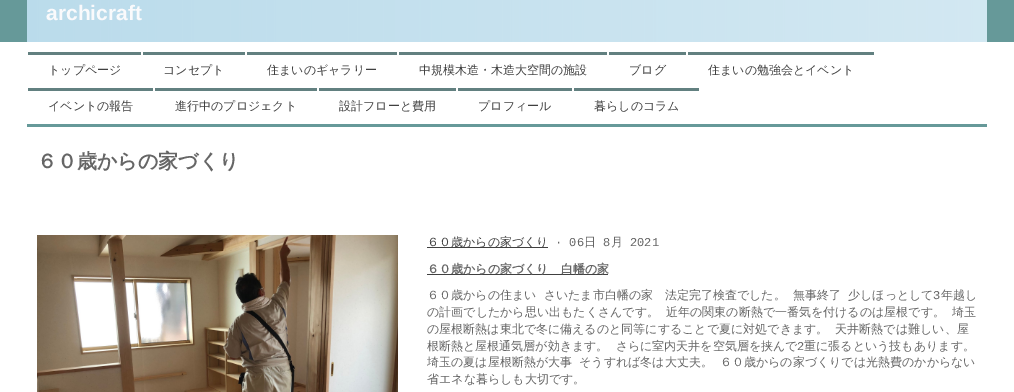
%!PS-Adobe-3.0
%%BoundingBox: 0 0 1014 392
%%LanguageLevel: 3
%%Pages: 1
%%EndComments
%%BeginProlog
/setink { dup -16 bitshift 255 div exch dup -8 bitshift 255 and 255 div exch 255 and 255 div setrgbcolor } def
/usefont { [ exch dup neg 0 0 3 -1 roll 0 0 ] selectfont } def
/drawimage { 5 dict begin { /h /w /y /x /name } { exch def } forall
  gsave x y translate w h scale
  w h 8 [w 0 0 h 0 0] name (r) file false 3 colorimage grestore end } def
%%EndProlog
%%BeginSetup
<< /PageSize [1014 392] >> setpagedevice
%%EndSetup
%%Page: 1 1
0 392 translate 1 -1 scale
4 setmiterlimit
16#FFFFFF setink
0 0 1014 392 rectfill
16#669999 setink
0 0 1014 42 rectfill
16#B4D8E9 setink
27 0 960 42 rectfill
(img1.raw) 27 0 960 42 drawimage
/LiberationSans-Bold 21 usefont
16#FAFAFC setink
46 20 moveto (archicraft) show
16#628080 setink
28 52 113 3 rectfill
/WenQuanYiZenHei-Medium 12 usefont
16#404040 setink
48 74 moveto (トップページ) show
16#628080 setink
143 52 102 3 rectfill
16#404040 setink
163 74 moveto (コンセプト) show
16#628080 setink
247 52 150 3 rectfill
16#404040 setink
267 74 moveto (住まいのギャラリー) show
16#628080 setink
399 52 208 3 rectfill
16#404040 setink
419 74 moveto (中規模木造・木造大空間の施設) show
16#628080 setink
609 52 77 3 rectfill
16#404040 setink
629 74 moveto (ブログ) show
16#628080 setink
688 52 186 3 rectfill
16#404040 setink
708 74 moveto (住まいの勉強会とイベント) show
16#628080 setink
28 88 125 3 rectfill
16#404040 setink
48 110 moveto (イベントの報告) show
16#628080 setink
155 88 162 3 rectfill
16#404040 setink
175 110 moveto (進行中のプロジェクト) show
16#628080 setink
319 88 137 3 rectfill
16#404040 setink
339 110 moveto (設計フローと費用) show
16#628080 setink
458 88 114 3 rectfill
16#404040 setink
478 110 moveto (プロフィール) show
16#628080 setink
574 88 125 3 rectfill
16#404040 setink
594 110 moveto (暮らしのコラム) show
16#669999 setink
27 124 960 3 rectfill
/WenQuanYiZenHei-Bold 20 usefont
16#666666 setink
37 168 moveto (６０歳からの家づくり) show
(img2.raw) 37 235 361 157 drawimage
16#404040 setink
427 247 121 1 rectfill
/WenQuanYiZenHei-Medium 12 usefont
427 246 moveto (６０歳からの家づくり) show
/LiberationMono-Regular 12 usefont
16#666666 setink
555 246 moveto (· 06) show
/WenQuanYiZenHei-Medium 12 usefont
584 246 moveto (日) show
/LiberationMono-Regular 12 usefont
603 246 moveto (8) show
/WenQuanYiZenHei-Medium 12 usefont
611 246 moveto (月) show
/LiberationMono-Regular 12 usefont
630 246 moveto (2021) show
16#404040 setink
427 274 181 1 rectfill
/WenQuanYiZenHei-Bold 12 usefont
16#666666 setink
427 273 moveto (６０歳からの家づくり　白幡の家) show
/WenQuanYiZenHei-Medium 12 usefont
427 299 moveto 3.5 0 32 (６０歳からの住まい さいたま市白幡の家　法定完了検査でした。 無事終了 少しほっとして) widthshow
/LiberationMono-Regular 12 usefont
933 299 moveto (3) show
/WenQuanYiZenHei-Medium 12 usefont
941 299 moveto (年越し) show
427 316 moveto 3.5 0 32 (の計画でしたから思い出もたくさんです。 近年の関東の断熱で一番気を付けるのは屋根です。 埼玉) widthshow
427 333 moveto 3.5 0 32 (の屋根断熱は東北で冬に備えるのと同等にすることで夏に対処できます。 天井断熱では難しい、屋) widthshow
427 350 moveto 3.5 0 32 (根断熱と屋根通気層が効きます。 さらに室内天井を空気層を挟んで) widthshow
/LiberationMono-Regular 12 usefont
797 350 moveto (2) show
/WenQuanYiZenHei-Medium 12 usefont
804 350 moveto (重に張るという技もあります。) show
427 366 moveto 3.5 0 32 (埼玉の夏は屋根断熱が大事 そうすれば冬は大丈夫。 ６０歳からの家づくりでは光熱費のかからない) widthshow
427 383 moveto (省エネな暮らしも大切です。) show
showpage
%%EOF
